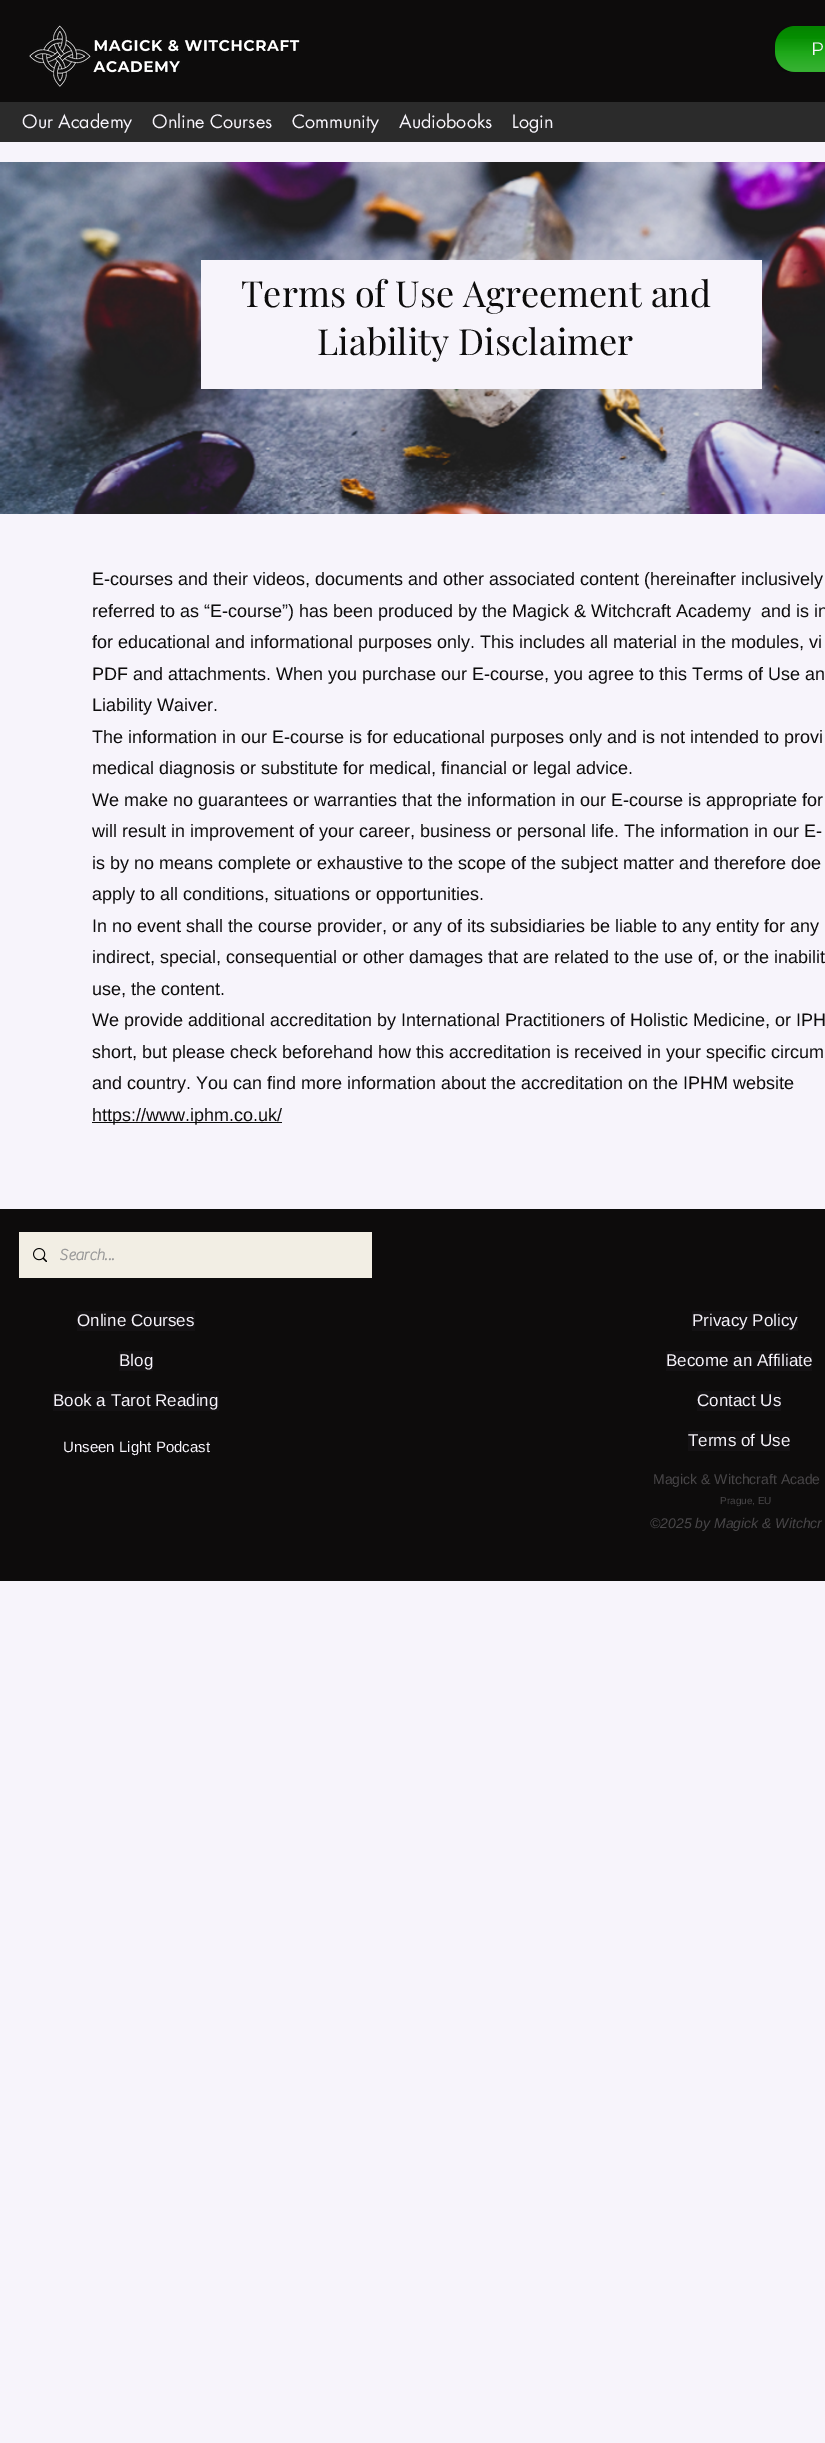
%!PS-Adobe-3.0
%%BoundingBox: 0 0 825 2443
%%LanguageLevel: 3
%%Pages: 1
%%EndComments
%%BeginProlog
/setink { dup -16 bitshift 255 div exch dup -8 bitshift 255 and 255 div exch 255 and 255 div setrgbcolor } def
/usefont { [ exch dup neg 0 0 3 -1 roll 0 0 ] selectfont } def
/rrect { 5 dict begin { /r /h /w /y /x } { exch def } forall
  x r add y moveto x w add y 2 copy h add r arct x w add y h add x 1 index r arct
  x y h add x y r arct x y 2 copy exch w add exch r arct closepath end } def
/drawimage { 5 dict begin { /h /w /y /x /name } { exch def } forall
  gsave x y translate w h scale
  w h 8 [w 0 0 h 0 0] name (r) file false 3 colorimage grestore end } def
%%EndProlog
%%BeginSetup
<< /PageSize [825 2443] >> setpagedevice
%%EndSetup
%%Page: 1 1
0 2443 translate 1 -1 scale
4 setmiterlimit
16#F7F4FB setink
0 0 825 2443 rectfill
16#0D0C0C setink
0 0 825 102 rectfill
(img1.raw) 29 25 271 62 drawimage
16#059E00 setink
775 26 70 46 20 rrect fill
(img2.raw) 775 26 50 25 drawimage
(img3.raw) 775 39 50 33 drawimage
/Montserrat-Regular 18 usefont
16#F7F4FB setink
811 55 moveto (P) show
16#2B2B2B setink
0 102 825 40 rectfill
/futura-Regular 18 usefont
16#F7F4FB setink
[
    [(Our Academy) 22 128]
    [(Online Courses) 152 128]
    [(Community) 292 128]
    [(Audiobooks) 399 128]
    [(Login) 512 128]
] { aload pop moveto show } forall
(img4.raw) 0 162 825 352 drawimage
201 260 561 129 rectfill
/PlayfairDisplay-Regular 36 usefont
16#0D0C0C setink
241 307 moveto (Terms of Use Agreement and) show
317 355 moveto (Liability Disclaimer) show
/LiberationSans-Regular 18 usefont
[
    [(E-courses and their videos, documents and other associated content \(hereinafter inclusively) 92 585]
    [(referred to as “E-course”\) has been produced by the Magick & Witchcraft Academy  and is in) 92 617]
    [(for educational and informational purposes only. This includes all material in the modules, vi) 92 648]
    [(PDF and attachments. When you purchase our E-course, you agree to this Terms of Use an) 92 680]
    [(Liability Waiver.) 92 711]
    [(The information in our E-course is for educational purposes only and is not intended to provi) 92 743]
    [(medical diagnosis or substitute for medical, financial or legal advice.) 92 774]
    [(We make no guarantees or warranties that the information in our E-course is appropriate for) 92 806]
    [(will result in improvement of your career, business or personal life. The information in our E-) 92 837]
    [(is by no means complete or exhaustive to the scope of the subject matter and therefore doe) 92 869]
    [(apply to all conditions, situations or opportunities.) 92 900]
    [(In no event shall the course provider, or any of its subsidiaries be liable to any entity for any) 92 932]
    [(indirect, special, consequential or other damages that are related to the use of, or the inabilit) 92 963]
    [(use, the content.) 92 995]
    [(We provide additional accreditation by International Practitioners of Holistic Medicine, or IPH) 92 1026]
    [(short, but please check beforehand how this accreditation is received in your specific circum) 92 1058]
    [(and country. You can find more information about the accreditation on the IPHM website) 92 1089]
] { aload pop moveto show } forall
92 1122 190 1 rectfill
92 1121 moveto (https://www.iphm.co.uk/) show
0 1209 825 372 rectfill
16#F2EEE4 setink
19 1232 353 46 rectfill
(img5.raw) 33 1248 14 14 drawimage
/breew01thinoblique-Bold 16 usefont
16#999999 setink
59 1260 moveto (Search...) show
16#131113 setink
77 1311 118 20 rectfill
/LiberationSans-Regular 17 usefont
16#F7F4FB setink
77 1326 moveto (Online Courses) show
16#131113 setink
692 1311 106 20 rectfill
16#F7F4FB setink
692 1326 moveto (Privacy Policy) show
16#131113 setink
119 1351 34 20 rectfill
16#F7F4FB setink
119 1366 moveto (Blog) show
16#131113 setink
666 1351 146 20 rectfill
16#F7F4FB setink
666 1366 moveto (Become an Affiliate) show
16#131113 setink
53 1391 166 20 rectfill
16#F7F4FB setink
53 1406 moveto (Book a Tarot Reading) show
16#131113 setink
697 1391 84 20 rectfill
16#F7F4FB setink
697 1406 moveto (Contact Us) show
/LiberationSans-Regular 15 usefont
63 1452 moveto (Unseen Light Podcast) show
16#131113 setink
688 1431 102 20 rectfill
/LiberationSans-Regular 17 usefont
16#F7F4FB setink
688 1446 moveto (Terms of Use) show
/LiberationSans-Regular 14 usefont
16#484648 setink
653 1484 moveto (Magick & Witchcraft Acade) show
/LiberationSans-Regular 10 usefont
720 1504 moveto (Prague, EU) show
/LiberationSans-Italic 14 usefont
650 1528 moveto (©2025 by Magick & Witchcr) show
showpage
%%EOF
